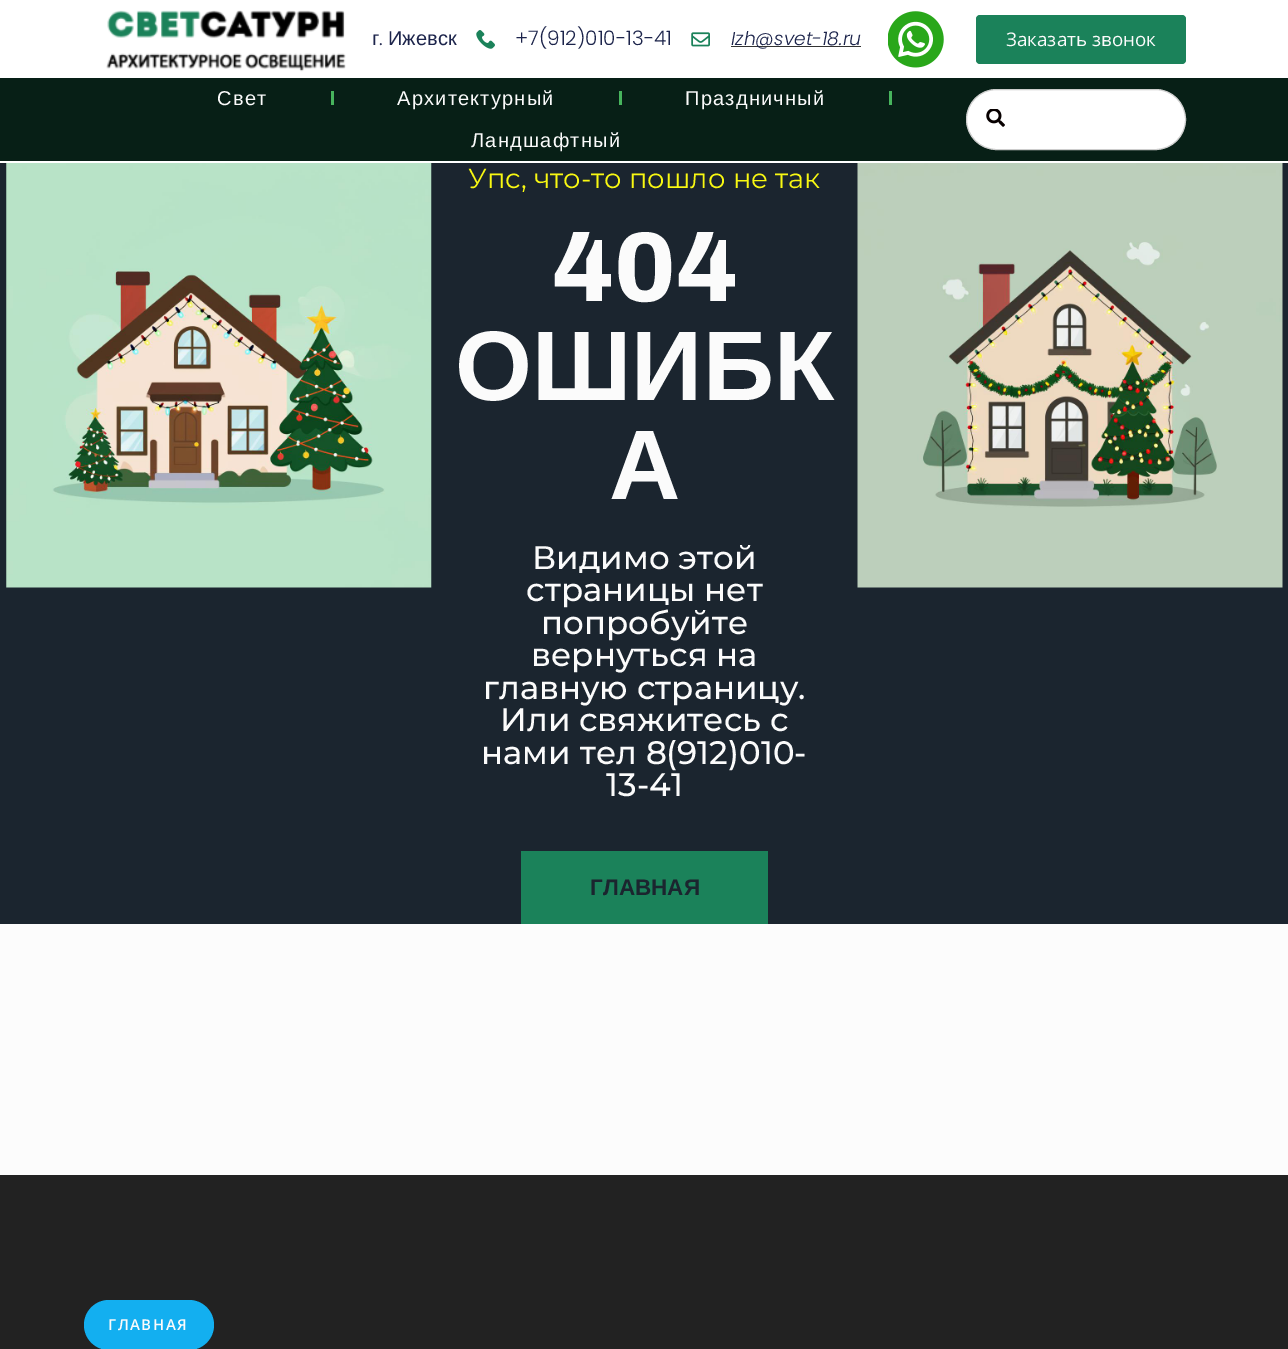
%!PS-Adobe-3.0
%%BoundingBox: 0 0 1288 1349
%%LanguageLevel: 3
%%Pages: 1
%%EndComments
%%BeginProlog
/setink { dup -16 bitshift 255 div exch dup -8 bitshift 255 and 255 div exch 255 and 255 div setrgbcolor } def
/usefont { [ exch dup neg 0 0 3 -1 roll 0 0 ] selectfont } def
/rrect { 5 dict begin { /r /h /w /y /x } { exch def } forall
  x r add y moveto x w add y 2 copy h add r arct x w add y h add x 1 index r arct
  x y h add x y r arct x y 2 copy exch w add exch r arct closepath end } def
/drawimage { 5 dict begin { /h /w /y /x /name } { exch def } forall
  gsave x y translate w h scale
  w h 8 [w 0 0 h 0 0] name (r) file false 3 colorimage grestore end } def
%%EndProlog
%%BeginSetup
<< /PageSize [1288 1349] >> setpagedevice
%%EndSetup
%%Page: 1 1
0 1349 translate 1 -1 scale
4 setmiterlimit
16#FCFCFC setink
0 0 1288 1349 rectfill
16#FFFFFF setink
0 161 1288 2 rectfill
0 0 1288 78 rectfill
(img1.raw) 106 10 240 62 drawimage
/LiberationSans-Regular 20 usefont
16#1C244B setink
372 45 moveto (г) show
/Poppins-Light 20 usefont
379 45 moveto (.) show
/LiberationSans-Regular 20 usefont
388 45 moveto (Ижевск) show
(img2.raw) 476 30 19 19 drawimage
/Poppins-Light 20 usefont
515 45 moveto (+7\(912\)010-13-41) show
(img3.raw) 691 32 19 15 drawimage
16#333333 setink
731 46 130 1 rectfill
/Poppins-LightItalic 18.75 usefont
16#1C244B setink
731 45 moveto (Izh@svet-18.ru) show
(img4.raw) 888 11 56 57 drawimage
16#1B825A setink
976 15 210 49 4 rrect fill
/OpenSans-Regular 18.75 usefont
16#FBFBFB setink
1006 46 moveto (Заказать звонок) show
16#071F16 setink
0 78 1288 83 rectfill
/LiberationSans-Regular 20 usefont
16#FBFBFB setink
217 105 moveto 1.25 0 (Свет) ashow
16#47B45D setink
331 91 3 14 rectfill
16#FBFBFB setink
397 105 moveto 1.25 0 (Архитектурный) ashow
16#47B45D setink
619 91 3 14 rectfill
16#FBFBFB setink
685 105 moveto 1.25 0 (Праздничный) ashow
16#47B45D setink
889 91 3 14 rectfill
16#FBFBFB setink
471 147 moveto 1.25 0 (Ландшафтный) ashow
16#FFFFFF setink
966.5 89.5 219 60 30 rrect gsave fill grestore
16#CDCDCD setink
stroke
(img5.raw) 986 109 19 18 drawimage
16#1B252F setink
0 163 1288 761 rectfill
(img6.raw) 6 163 426 425 drawimage
/Montserrat-Regular 27.5 usefont
16#F8F812 setink
468 188 moveto (Упс, что-то пошло не так) show
/Archivo-ExtraBold 99 usefont
16#FBFBFB setink
552 301 moveto (404) show
/LiberationSans-Bold 99 usefont
455 400 moveto (ОШИБК) show
609 499 moveto (А) show
/Montserrat-Medium 32.5 usefont
[
    [(Видимо этой) 532 569]
    [(страницы нет) 526 601]
    [(попробуйте) 541 634]
    [(вернуться на) 531 666]
    [(главную страницу.) 483 699]
    [(Или свяжитесь с) 500 731]
    [(нами тел 8\(912\)010-) 481 764]
    [(13-41) 606 796]
] { aload pop moveto show } forall
16#1B825A setink
521 851 247 73 rectfill
/LiberationSans-Bold 22.5 usefont
16#1B252F setink
590 895 moveto (ГЛАВНАЯ) show
(img7.raw) 857 163 426 425 drawimage
16#222222 setink
0 1175 1288 174 rectfill
16#13AFF0 setink
84 1300 130 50 25 rrect fill
/OpenSans-SemiBold 15 usefont
16#FBFBFB setink
108 1330 moveto 1.5 0 (ГЛАВНАЯ) ashow
showpage
%%EOF
